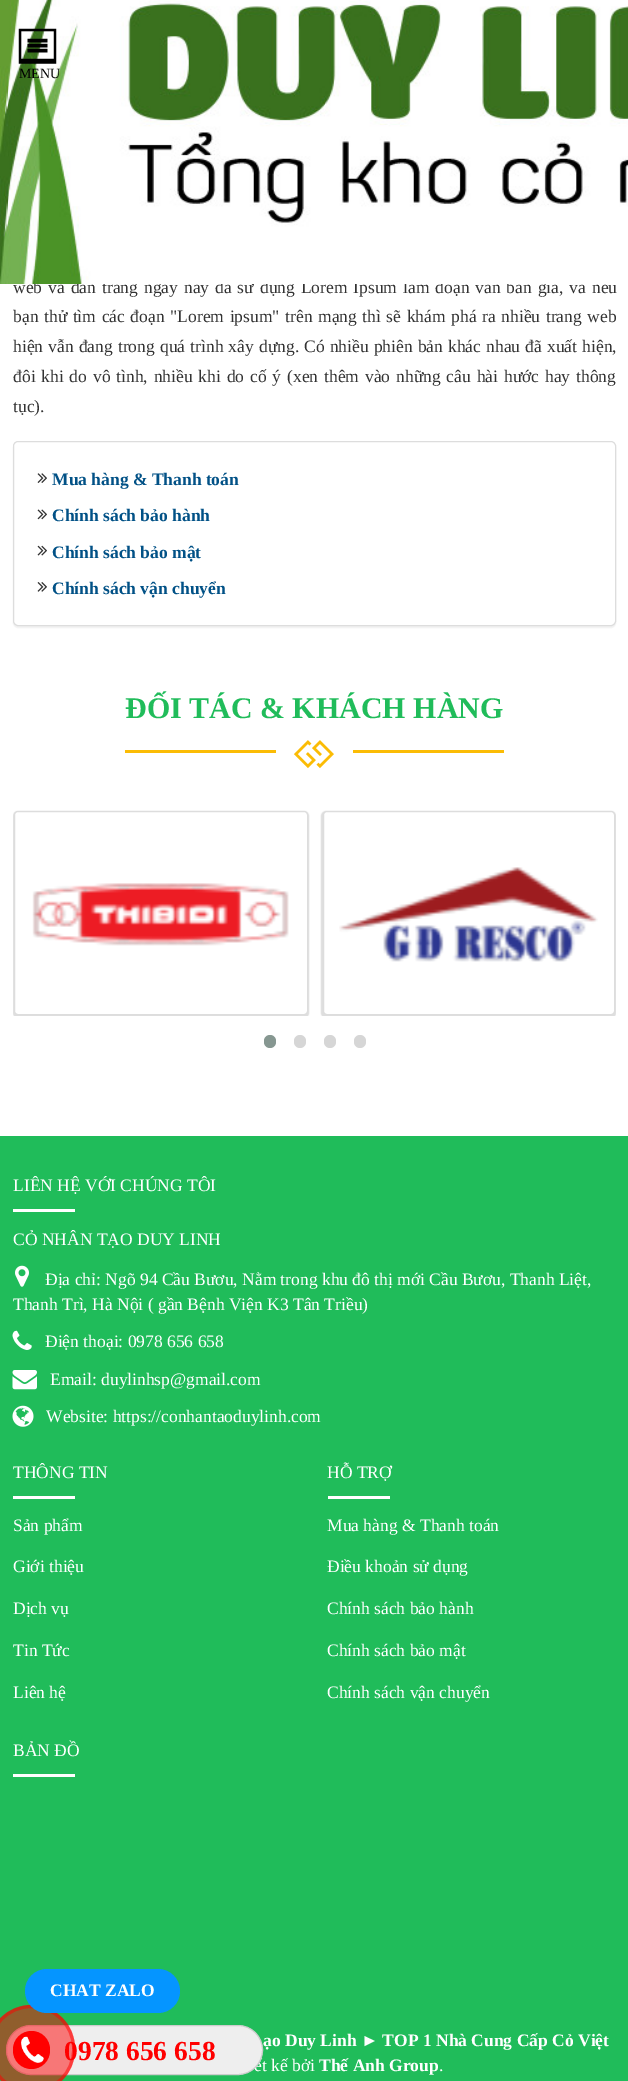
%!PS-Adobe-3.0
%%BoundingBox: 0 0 628 2081
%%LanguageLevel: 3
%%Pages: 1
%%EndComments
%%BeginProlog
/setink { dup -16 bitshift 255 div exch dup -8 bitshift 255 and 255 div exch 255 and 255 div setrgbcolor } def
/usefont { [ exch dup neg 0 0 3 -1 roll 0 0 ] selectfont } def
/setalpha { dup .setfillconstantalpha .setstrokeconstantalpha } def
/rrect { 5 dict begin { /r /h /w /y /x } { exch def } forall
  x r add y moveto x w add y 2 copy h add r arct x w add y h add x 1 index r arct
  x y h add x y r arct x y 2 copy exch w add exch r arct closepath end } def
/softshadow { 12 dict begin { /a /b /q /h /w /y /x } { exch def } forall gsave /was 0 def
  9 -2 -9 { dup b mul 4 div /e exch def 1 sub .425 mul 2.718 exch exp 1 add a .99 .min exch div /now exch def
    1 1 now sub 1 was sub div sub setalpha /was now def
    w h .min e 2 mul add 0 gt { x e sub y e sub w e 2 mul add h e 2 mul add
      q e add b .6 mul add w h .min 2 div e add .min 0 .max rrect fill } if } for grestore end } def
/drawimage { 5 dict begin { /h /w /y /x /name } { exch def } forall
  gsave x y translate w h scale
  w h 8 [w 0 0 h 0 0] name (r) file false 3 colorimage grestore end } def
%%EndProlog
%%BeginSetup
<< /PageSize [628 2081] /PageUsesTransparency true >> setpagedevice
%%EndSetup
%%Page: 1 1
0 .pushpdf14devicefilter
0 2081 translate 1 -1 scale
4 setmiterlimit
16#FFFFFF setink
0 0 628 2081 rectfill
/LiberationSerif-Regular 17.5 usefont
16#333333 setink
13 293 moveto 1.6 0 32 (web và dàn trang ngày nay đã sử dụng Lorem Ipsum làm đoạn văn bản giả, và nếu) widthshow
(img1.raw) 0 0 628 284 drawimage
(img2.raw) 18 28 39 36 drawimage
/LiberationSerif-Regular 14 usefont
16#000000 setink
19 78 moveto (MENU) show
/LiberationSerif-Regular 17.5 usefont
16#333333 setink
13 322 moveto 1.25 0 32 (bạn thử tìm các đoạn "Lorem ipsum" trên mạng thì sẽ khám phá ra nhiều trang web) widthshow
13 352 moveto 0.75 0 32 (hiện vẫn đang trong quá trình xây dựng. Có nhiều phiên bản khác nhau đã xuất hiện,) widthshow
13 382 moveto 1.5 0 32 (đôi khi do vô tình, nhiều khi do cố ý \(xen thêm vào những câu hài hước hay thông) widthshow
13 412 moveto (tục\).) show
gsave
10 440 moveto 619 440 lineto 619 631 lineto 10 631 lineto closepath 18 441 moveto 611 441 lineto 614 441 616 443 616 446 curveto 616 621 lineto 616 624 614 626 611 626 curveto 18 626 lineto 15 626 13 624 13 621 curveto 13 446 lineto 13 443 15 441 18 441 curveto closepath eoclip newpath
16#000000 setink
13 443 603 185 5 0.5 0.05 softshadow
grestore
16#DDDDDD setink
13.5 441.5 602 184 4.5 rrect stroke
(img3.raw) 37 473 10 10 drawimage
/LiberationSerif-Bold 17.5 usefont
16#015186 setink
52 485 moveto (Mua hàng & Thanh toán) show
(img4.raw) 37 509 10 11 drawimage
52 521 moveto (Chính sách bảo hành) show
(img5.raw) 37 545 10 11 drawimage
52 558 moveto (Chính sách bảo mật) show
(img6.raw) 37 582 10 10 drawimage
52 594 moveto (Chính sách vận chuyển) show
/LiberationSerif-Bold 30 usefont
16#20BC5A setink
125 718 moveto (ĐỐI TÁC & KHÁCH HÀNG) show
16#FBBC05 setink
125 750 151 3 rectfill
353 750 151 3 rectfill
(img7.raw) 293 740 41 29 drawimage
gsave
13 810 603 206 rectclip
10 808 moveto 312 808 lineto 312 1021 lineto 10 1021 lineto closepath 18 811 moveto 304 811 lineto 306 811 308 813 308 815 curveto 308 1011 lineto 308 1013 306 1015 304 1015 curveto 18 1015 lineto 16 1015 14 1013 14 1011 curveto 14 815 lineto 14 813 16 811 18 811 curveto closepath eoclip newpath
16#DDDDDD setink
13 811 296 207 5 0.5 1 softshadow
grestore
16#DDDDDD setink
14.5 811.5 293 203 3.5 rrect stroke
(img8.raw) 32 883 257 63 drawimage
gsave
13 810 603 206 rectclip
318 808 moveto 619 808 lineto 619 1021 lineto 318 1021 lineto closepath 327 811 moveto 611 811 lineto 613 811 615 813 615 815 curveto 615 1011 lineto 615 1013 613 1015 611 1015 curveto 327 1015 lineto 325 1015 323 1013 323 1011 curveto 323 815 lineto 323 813 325 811 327 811 curveto closepath eoclip newpath
321 811 295 207 5 0.5 1 softshadow
grestore
323.5 811.5 291 203 3.5 rrect stroke
(img9.raw) 339 867 259 95 drawimage
16#869791 setink
264 1035 12 13 6 rrect fill
16#D6D6D6 setink
294 1035 12 13 6 rrect fill
324 1035 12 13 6 rrect fill
354 1035 12 13 6 rrect fill
16#20BC5A setink
0 1136 628 945 rectfill
/LiberationSerif-Regular 17.5 usefont
16#FFFFFF setink
13 1191 moveto (LIÊN HỆ VỚI CHÚNG TÔI) show
13 1209 62 3 rectfill
13 1245 moveto (CỎ NHÂN TẠO DUY LINH) show
(img10.raw) 15 1265 14 22 drawimage
45 1285 moveto (Địa chỉ: Ngõ 94 Cầu Bươu, Nằm trong khu đô thị mới Cầu Bươu, Thanh Liệt,) show
13 1310 moveto (Thanh Trì, Hà Nội \( gần Bệnh Viện K3 Tân Triều\)) show
(img11.raw) 12 1330 20 20 drawimage
45 1347 moveto (Điện thoại: 0978 656 658) show
(img12.raw) 12 1370 25 20 drawimage
50 1385 moveto (Email: duylinhsp@gmail.com) show
(img13.raw) 12 1405 22 22 drawimage
46 1422 moveto (Website: https://conhantaoduylinh.com) show
13 1478 moveto (THÔNG TIN) show
13 1496 62 3 rectfill
[
    [(Sản phẩm) 13 1531]
    [(Giới thiệu) 13 1572]
    [(Dịch vụ) 13 1614]
    [(Tin Tức) 13 1656]
    [(Liên hệ) 13 1698]
    [(HỖ TRỢ) 327 1478]
] { aload pop moveto show } forall
328 1496 62 3 rectfill
[
    [(Mua hàng & Thanh toán) 327 1531]
    [(Điều khoản sử dụng) 327 1572]
    [(Chính sách bảo hành) 327 1614]
    [(Chính sách bảo mật) 327 1656]
    [(Chính sách vận chuyển) 327 1698]
    [(BẢN ĐỒ) 13 1756]
] { aload pop moveto show } forall
13 1774 62 3 rectfill
254 2071 moveto (ết kế bởi) show
16#EEEEEE setink
6.5 2025.5 256 49 24.5 rrect gsave fill grestore
16#CCCCCC setink
stroke
/LiberationSerif-Bold 27.5 usefont
16#FF0000 setink
64 2060 moveto (0978 656 658) show
0.5 setalpha
-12 2005 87 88 43.5 rrect fill
3 setlinewidth
-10.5 2006.5 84 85 42 rrect stroke
1 setalpha
16#0595FF setink
25 1969 155 44 22 rrect fill
/LiberationSerif-Bold 17.5 usefont
16#FFFFFF setink
50 1996 moveto (CHAT ZALO) show
16#FF0000 setink
13 2031 37 38 18.5 rrect fill
(img14.raw) 21 2036 23 27 drawimage
16#FFFFFF setink
263 2046 moveto (ạo Duy Linh ► TOP 1 Nhà Cung Cấp Cỏ Việt) show
319 2071 moveto (Thế Anh Group) show
/LiberationSerif-Regular 17.5 usefont
439 2071 moveto (.) show
.poppdf14devicefilter showpage
%%EOF
